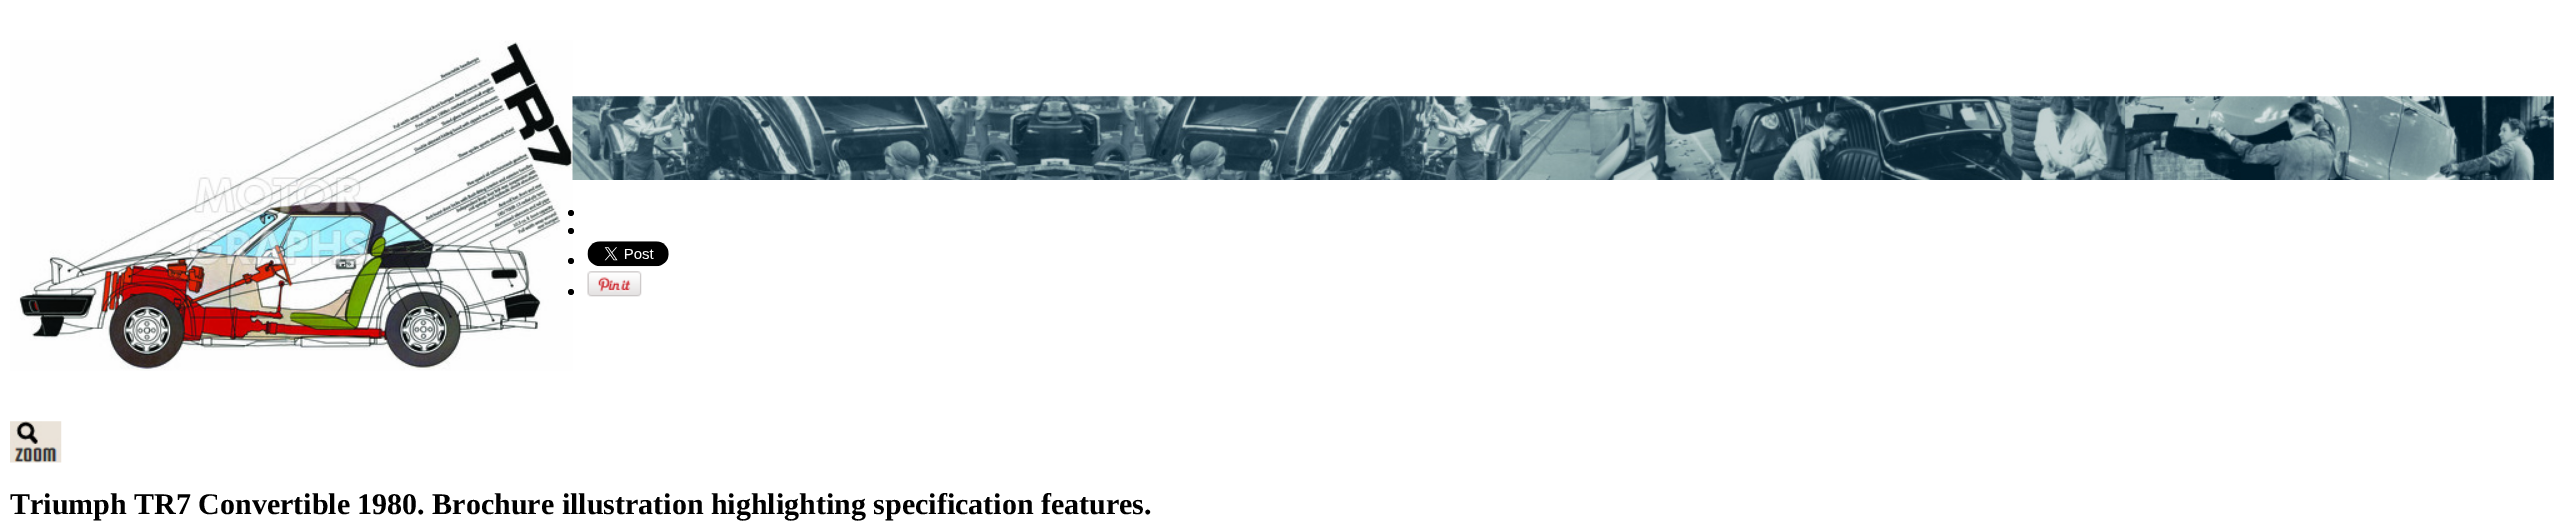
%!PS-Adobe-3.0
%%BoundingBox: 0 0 2563 530
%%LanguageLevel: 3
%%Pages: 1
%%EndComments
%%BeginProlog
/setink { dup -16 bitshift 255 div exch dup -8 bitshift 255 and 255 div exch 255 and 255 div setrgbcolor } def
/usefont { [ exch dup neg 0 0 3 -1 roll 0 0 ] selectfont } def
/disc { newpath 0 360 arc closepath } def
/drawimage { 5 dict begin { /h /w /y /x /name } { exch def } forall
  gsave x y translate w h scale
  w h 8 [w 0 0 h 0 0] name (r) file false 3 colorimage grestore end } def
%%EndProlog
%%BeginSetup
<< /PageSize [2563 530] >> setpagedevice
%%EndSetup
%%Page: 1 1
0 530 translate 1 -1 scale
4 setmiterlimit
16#FFFFFF setink
0 0 2563 530 rectfill
(img1.raw) 572 96 1982 84 drawimage
(img4.raw) 10 40 563 331 drawimage
16#000000 setink
571 213 3 disc fill
571 231 3 disc fill
571 261 3 disc fill
(img2.raw) 587 241 82 26 drawimage
571 292 3 disc fill
(img3.raw) 587 271 55 26 drawimage
(img5.raw) 10 421 52 42 drawimage
/LiberationSerif-Bold 30 usefont
10 514 moveto (Triumph TR7 Convertible 1980. Brochure illustration highlighting specification features.) show
showpage
%%EOF
